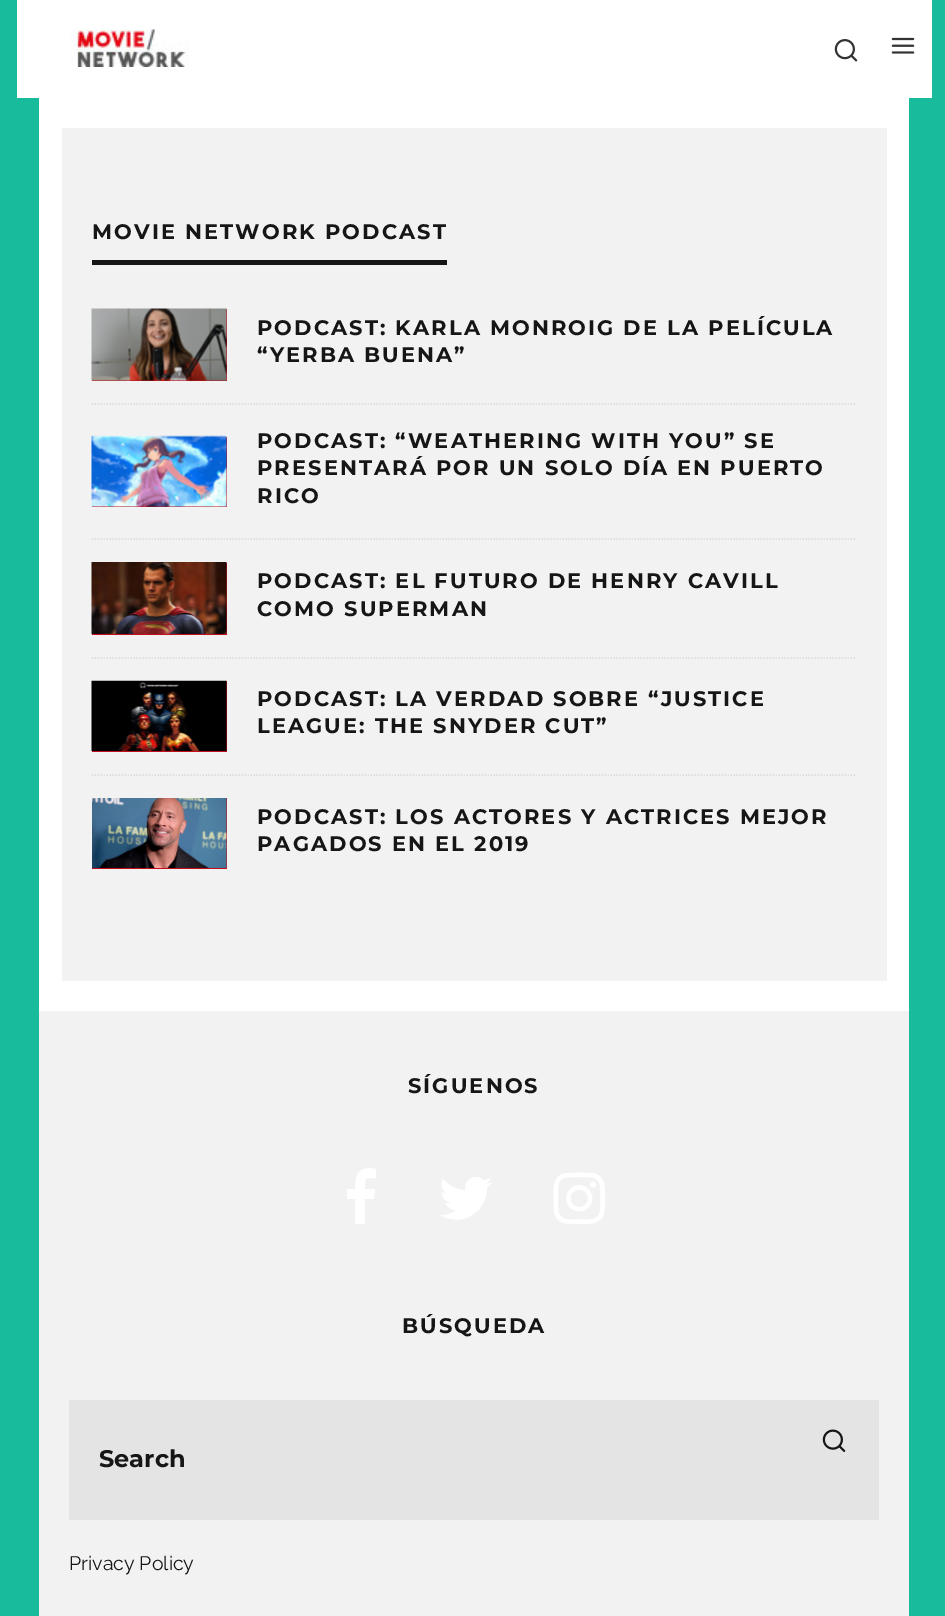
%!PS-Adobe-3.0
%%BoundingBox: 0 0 945 1616
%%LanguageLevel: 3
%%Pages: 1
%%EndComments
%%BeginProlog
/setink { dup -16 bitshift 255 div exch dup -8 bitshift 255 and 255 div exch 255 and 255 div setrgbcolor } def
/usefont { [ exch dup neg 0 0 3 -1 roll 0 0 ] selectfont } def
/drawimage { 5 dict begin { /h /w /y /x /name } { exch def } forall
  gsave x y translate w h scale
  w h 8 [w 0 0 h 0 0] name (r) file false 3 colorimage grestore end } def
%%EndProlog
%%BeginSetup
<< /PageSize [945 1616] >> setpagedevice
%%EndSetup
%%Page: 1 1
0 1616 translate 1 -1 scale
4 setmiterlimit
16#18BC9C setink
0 0 945 1616 rectfill
16#FFFFFF setink
17 0 915 98 rectfill
(img1.raw) 70 29 119 38 drawimage
(img2.raw) 834 39 24 23 drawimage
(img3.raw) 891 37 24 17 drawimage
[
    [39 98 870 913 16#FFFFFF]
    [62 128 825 853 16#F2F2F2]
    [92 260 355 5 16#161616]
] { aload pop setink rectfill } forall
/Montserrat-Bold 21 usefont
92 239 moveto 2.1 0 (MOVIE NETWORK PODCAST) ashow
16#DDDDDD setink
1.5 setlinewidth
[1.5 1.5] 0 setdash
91.5 404 moveto 856.5 404 lineto stroke
16#C20E1A setink
92 309 135 72 rectfill
(img4.raw) 91 308 136 73 drawimage
16#161616 setink
257 335 moveto 2.1 0 (PODCAST: KARLA MONROIG DE LA PELÍCULA) ashow
257 362 moveto 2.1 0 (“YERBA BUENA”) ashow
16#DDDDDD setink
91.5 539 moveto 856.5 539 lineto stroke
16#C20E1A setink
92 437 135 70 rectfill
(img5.raw) 91 435 136 72 drawimage
16#161616 setink
257 448 moveto 2.1 0 (PODCAST: “WEATHERING WITH YOU” SE) ashow
257 475 moveto 2.1 0 (PRESENTARÁ POR UN SOLO DÍA EN PUERTO) ashow
257 503 moveto 2.1 0 (RICO) ashow
16#DDDDDD setink
91.5 658 moveto 856.5 658 lineto stroke
16#C20E1A setink
92 563 135 72 rectfill
(img6.raw) 91 562 136 72 drawimage
16#161616 setink
257 588 moveto 2.1 0 (PODCAST: EL FUTURO DE HENRY CAVILL) ashow
257 616 moveto 2.1 0 (COMO SUPERMAN) ashow
16#DDDDDD setink
91.5 775 moveto 856.5 775 lineto stroke
16#C20E1A setink
92 681 135 71 rectfill
(img7.raw) 91 680 136 71 drawimage
16#161616 setink
257 706 moveto 2.1 0 (PODCAST: LA VERDAD SOBRE “JUSTICE) ashow
257 733 moveto 2.1 0 (LEAGUE: THE SNYDER CUT”) ashow
16#C20E1A setink
92 798 135 71 rectfill
(img8.raw) 92 798 135 70 drawimage
16#161616 setink
257 824 moveto 2.1 0 (PODCAST: LOS ACTORES Y ACTRICES MEJOR) ashow
257 851 moveto 2.1 0 (PAGADOS EN EL 2019) ashow
16#F2F2F2 setink
39 1011 870 605 rectfill
16#161616 setink
408 1093 moveto 2.1 0 (SÍGUENOS) ashow
16#FFFFFF setink
376 1169 moveto 376 1178 lineto 364 1178 365 1178 365 1189 curveto 375 1189 lineto 374 1199 lineto 365 1199 lineto 365 1224 lineto 355 1224 lineto 355 1199 lineto 347 1199 lineto 347 1189 lineto 355 1189 lineto 356 1178 lineto 358 1168 368 1167 376 1169 curveto closepath fill
(img9.raw) 440 1177 52 43 drawimage
(img10.raw) 553 1172 52 52 drawimage
16#161616 setink
402 1333 moveto 2.1 0 (BÚSQUEDA) ashow
16#E4E4E4 setink
69 1400 810 120 rectfill
(img11.raw) 822 1429 24 23 drawimage
/Montserrat-Bold 24 usefont
16#161616 setink
99 1467 moveto (Search) show
/Raleway-Regular 19.5 usefont
69 1570 moveto (Privacy Policy) show
showpage
%%EOF
